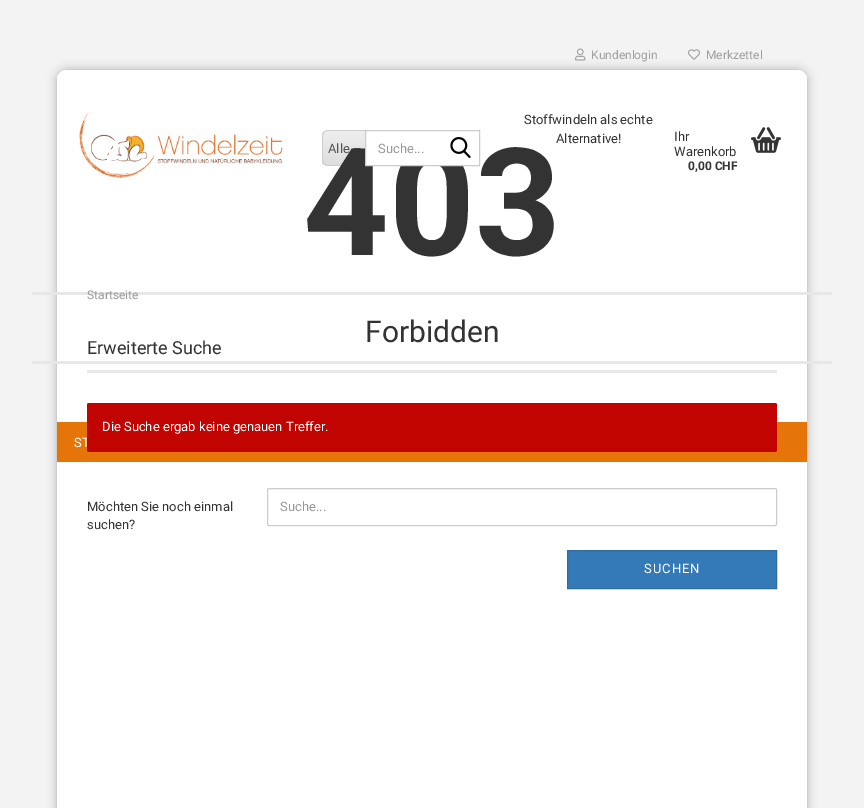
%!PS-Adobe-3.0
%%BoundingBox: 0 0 864 808
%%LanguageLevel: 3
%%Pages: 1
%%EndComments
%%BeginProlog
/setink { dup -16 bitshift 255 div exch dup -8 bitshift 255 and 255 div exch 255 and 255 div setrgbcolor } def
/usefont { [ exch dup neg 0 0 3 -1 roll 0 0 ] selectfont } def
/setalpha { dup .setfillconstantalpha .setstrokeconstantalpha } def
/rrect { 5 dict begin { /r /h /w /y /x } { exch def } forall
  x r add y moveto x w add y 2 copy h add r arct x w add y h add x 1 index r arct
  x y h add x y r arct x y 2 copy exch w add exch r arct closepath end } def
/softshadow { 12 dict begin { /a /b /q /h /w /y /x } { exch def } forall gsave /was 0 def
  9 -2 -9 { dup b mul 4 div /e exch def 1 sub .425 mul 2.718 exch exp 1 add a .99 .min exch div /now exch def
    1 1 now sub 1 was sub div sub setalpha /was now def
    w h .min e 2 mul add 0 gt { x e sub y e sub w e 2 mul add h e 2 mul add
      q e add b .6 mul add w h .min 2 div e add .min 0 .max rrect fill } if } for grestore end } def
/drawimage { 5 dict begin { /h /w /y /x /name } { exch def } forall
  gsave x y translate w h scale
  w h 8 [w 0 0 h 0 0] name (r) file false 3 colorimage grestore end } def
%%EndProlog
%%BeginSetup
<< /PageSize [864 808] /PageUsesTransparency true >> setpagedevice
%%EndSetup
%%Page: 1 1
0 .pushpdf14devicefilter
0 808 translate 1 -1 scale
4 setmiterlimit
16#F3F3F3 setink
0 0 864 808 rectfill
16#000000 setink
57 70 750 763 10 5 0.3 softshadow
16#FFFFFF setink
57 70 750 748 10 rrect fill
67 70 moveto 797 70 lineto 802.5 70 807 74.5 807 80 curveto 807 264 lineto 807 265 806 266 805 266 curveto 59 266 lineto 58 266 57 265 57 264 curveto 57 80 lineto 57 74.5 61.5 70 67 70 curveto closepath fill
(img1.raw) 575 48 11 13 drawimage
/Roboto-Regular 12 usefont
16#9F9F9F setink
591 59 moveto (Kundenlogin) show
(img2.raw) 688 49 12 11 drawimage
706 59 moveto (Merkzettel) show
(img3.raw) 79 112 204 66 drawimage
gsave
328 130 moveto 365 130 lineto 365 166 lineto 328 166 lineto 324.5 166 322 163.5 322 160 curveto 322 136 lineto 322 132.5 324.5 130 328 130 curveto closepath clip newpath
gsave 322 131 moveto 365 131 lineto 365 165 lineto 322 165 lineto closepath clip newpath
<< /ShadingType 2 /ColorSpace /DeviceRGB /Coords [344 131 344 165] /Extend [true true] /Function << /FunctionType 2 /Domain [0 1] /C0 [0.933 0.933 0.933] /C1 [0.871 0.871 0.871] /N 1 >> >> shfill grestore
grestore
16#CCCCCC setink
328 130 moveto 365 130 lineto 365 166 lineto 328 166 lineto 325 166 322 163 322 160 curveto 322 136 lineto 322 133 325 130 328 130 curveto closepath 328 131 moveto 365 131 lineto 365 165 lineto 328 165 lineto 325 165 323 163 323 160 curveto 323 136 lineto 323 133 325 131 328 131 curveto closepath eofill
/Roboto-Regular 13 usefont
16#555555 setink
328 153 moveto (Alle) show
353 148 moveto 361 148 lineto 357 152 lineto closepath fill
/Roboto-Bold 150 usefont
16#333333 setink
303 255 moveto (403) show
16#FFFFFF setink
366 146 97 19 rectfill
16#CCCCCC setink
365.5 130.5 114 35 rectstroke
/Roboto-Regular 13 usefont
16#999999 setink
378 153 moveto (Suche...) show
(img4.raw) 450 137 21 21 drawimage
16#333333 setink
[
    [(Stoffwindeln als echte) 524 124]
    [(Alternative!) 556 143]
    [(Ihr) 674 141]
    [(Warenkorb) 674 156]
] { aload pop moveto show } forall
/Roboto-Bold 12 usefont
688 170 moveto (0,00 CHF) show
(img5.raw) 751 127 30 26 drawimage
16#E7E7E7 setink
32 292 800 3 rectfill
32 361 800 3 rectfill
/Roboto-Regular 30 usefont
16#333333 setink
365 342 moveto (Forbidden) show
16#E57508 setink
57 422 750 40 rectfill
/Roboto-Regular 13 usefont
16#FFFFFF setink
74 447 moveto (ST) show
/Roboto-Regular 12 usefont
16#999999 setink
87 299 moveto (Startseite) show
16#E7E7E7 setink
87 370 690 3 rectfill
/Roboto-Regular 18 usefont
16#333333 setink
87 354 moveto (Erweiterte Suche) show
16#C20400 setink
87 403 690 49 2 rrect fill
/Roboto-Regular 13 usefont
16#FFFFFF setink
102 431 moveto (Die Suche ergab keine genauen Treffer.) show
16#333333 setink
87 511 moveto (Möchten Sie noch einmal) show
87 529 moveto (suchen?) show
16#CCCCCC setink
267.5 488.5 509 37 1.5 rrect stroke
16#999999 setink
280 511 moveto (Suche...) show
16#337AB7 setink
567.5 550.5 moveto 776.5 550.5 lineto 776.5 588.5 lineto 567.5 588.5 lineto closepath gsave fill grestore
16#2D6DA3 setink
stroke
16#FFFFFF setink
644 573 moveto 1 0 (SUCHEN) ashow
.poppdf14devicefilter showpage
%%EOF
